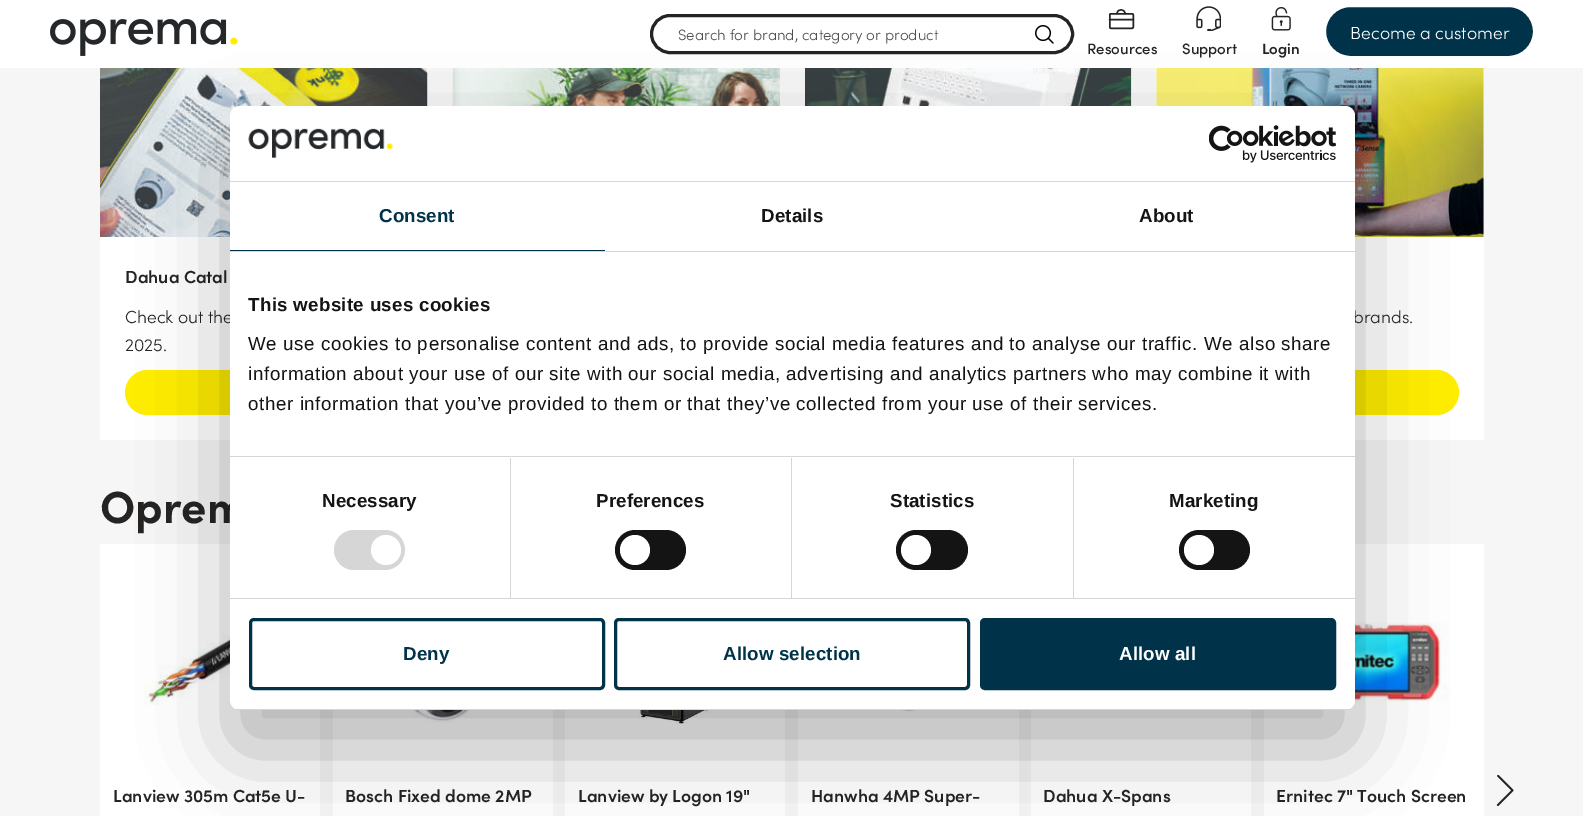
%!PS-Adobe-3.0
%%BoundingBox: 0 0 1583 816
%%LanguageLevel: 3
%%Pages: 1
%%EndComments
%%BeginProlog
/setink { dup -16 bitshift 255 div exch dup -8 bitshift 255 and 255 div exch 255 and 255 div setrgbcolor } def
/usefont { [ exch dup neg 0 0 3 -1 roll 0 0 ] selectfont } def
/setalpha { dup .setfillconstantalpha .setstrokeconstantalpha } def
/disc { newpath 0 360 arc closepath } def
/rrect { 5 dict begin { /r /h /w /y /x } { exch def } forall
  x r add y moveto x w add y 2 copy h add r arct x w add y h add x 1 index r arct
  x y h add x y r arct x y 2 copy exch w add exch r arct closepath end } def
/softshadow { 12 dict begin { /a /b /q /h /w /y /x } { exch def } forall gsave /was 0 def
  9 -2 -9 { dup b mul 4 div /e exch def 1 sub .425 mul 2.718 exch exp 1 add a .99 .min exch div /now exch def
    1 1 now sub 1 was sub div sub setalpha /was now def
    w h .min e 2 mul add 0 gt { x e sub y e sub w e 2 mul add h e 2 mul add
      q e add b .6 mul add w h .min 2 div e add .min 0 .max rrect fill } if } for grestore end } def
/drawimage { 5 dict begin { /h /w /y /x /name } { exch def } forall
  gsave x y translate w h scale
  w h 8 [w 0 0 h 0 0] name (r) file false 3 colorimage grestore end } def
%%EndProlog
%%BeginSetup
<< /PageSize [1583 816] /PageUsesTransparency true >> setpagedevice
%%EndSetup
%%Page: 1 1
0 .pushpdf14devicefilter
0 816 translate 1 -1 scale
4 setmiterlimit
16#F6F6F6 setink
0 0 1583 816 rectfill
16#FFFFFF setink
0 0 1583 68 rectfill
(img1.raw) 50 19 188 37 drawimage
16#262422 setink
3 setlinewidth
651.5 15.5 421 37 18.5 rrect stroke
/Sofia-Light 15 usefont
16#51504E setink
678 40 moveto (Search for brand, category or product) show
(img2.raw) 1035 25 19 19 drawimage
16#003349 setink
1325 6 209 50 25 rrect fill
16#FFFFFF setink
1324.5 5.5 210 52 26 rrect stroke
/Sofia-Light 17.5 usefont
1350 39 moveto (Become a customer) show
16#262422 setink
1.4 setlinewidth
1 setlinecap
1 setlinejoin
1109.5 19.5 moveto 1133 19.5 lineto stroke
1.5 setlinewidth
0 setlinecap
0 setlinejoin
1109.75 13.75 23.5 14.5 1.25 rrect stroke
1.4 setlinewidth
1 setlinecap
1 setlinejoin
1117 13.5 moveto 1117 8.5 1125 8.5 1125 13.5 curveto stroke
/Sofia-Medium 15 usefont
1087 54 moveto (Resources) show
(img3.raw) 1196 6 25 25 drawimage
1182 54 moveto (Support) show
(img4.raw) 1271 7 20 24 drawimage
/Sofia-SemiBold 15 usefont
1262 54 moveto (Login) show
(img5.raw) 452 68 328 38 drawimage
(img6.raw) 805 68 327 38 drawimage
16#FFFFFF setink
100 68 328 372 rectfill
(img7.raw) 100 68 328 169 drawimage
/Sofia-SemiBold 17.5 usefont
16#262422 setink
125 283 moveto (Dahua Catal) show
/Sofia-Light 17.5 usefont
125 323 moveto (Check out the) show
125 351 moveto (2025.) show
16#FFED00 setink
125 370 278 45 22.5 rrect fill
16#FFFFFF setink
1156 68 328 372 rectfill
(img8.raw) 1156 68 328 169 drawimage
16#262422 setink
1353 323 moveto (brands.) show
16#FFED00 setink
1181 370 278 45 22.5 rrect fill
/Sofia-Bold 45 usefont
16#262422 setink
100 523 moveto (Oprem) show
16#FFFFFF setink
100 544 220 272 rectfill
(img9.raw) 143 603 89 102 drawimage
/Sofia-SemiBold 17.5 usefont
16#262422 setink
113 802 moveto (Lanview 305m Cat5e U-) show
16#FFFFFF setink
333 710 220 106 rectfill
(img10.raw) 382 710 124 13 drawimage
16#262422 setink
345 802 moveto (Bosch Fixed dome 2MP) show
16#FFFFFF setink
565 710 220 106 rectfill
(img11.raw) 637 710 75 14 drawimage
16#262422 setink
578 802 moveto (Lanview by Logon 19") show
16#FFFFFF setink
798 710 221 106 rectfill
(img12.raw) 854 710 109 1 drawimage
16#262422 setink
811 802 moveto (Hanwha 4MP Super-) show
16#FFFFFF setink
1031 710 220 106 rectfill
16#262422 setink
1043 802 moveto (Dahua X-Spans) show
16#FFFFFF setink
1264 544 220 272 rectfill
(img13.raw) 1354 622 95 80 drawimage
16#262422 setink
1276 802 moveto (Ernitec 7" Touch Screen) show
(img14.raw) 1496 775 18 31 drawimage
16#000000 setink
230 146 1125 604 10 42.5 0.3 softshadow
16#FFFFFF setink
230 106 1125 604 10 rrect fill
16#D6D6D6 setink
230 181 1125 1 rectfill
(img15.raw) 248 128 145 30 drawimage
(img16.raw) 1209 125 127 38 drawimage
230 251 1125 1 rectfill
16#003349 setink
230 250 375 1 rectfill
/LiberationSans-Bold 18.75 usefont
379 222 moveto 0.1 0 (Consent) ashow
16#141414 setink
761 222 moveto 0.1 0 (Details) ashow
1139 222 moveto 0.1 0 (About) ashow
16#D6D6D6 setink
230 456 1125 1 rectfill
16#141414 setink
248 311 moveto 0.3 0 (This website uses cookies) ashow
/LiberationSans-Regular 18.75 usefont
248 350 moveto 0.62 0 (We use cookies to personalise content and ads, to provide social media features and to analyse our traffic. We also share) ashow
248 380 moveto 0.62 0 (information about your use of our site with our social media, advertising and analytics partners who may combine it with) ashow
248 410 moveto 0.62 0 (other information that you’ve provided to them or that they’ve collected from your use of their services.) ashow
16#D6D6D6 setink
230 598 1125 1 rectfill
510 458 1 140 rectfill
/LiberationSans-Bold 18.75 usefont
16#141414 setink
322 507 moveto 0.1 0 (Necessary) ashow
16#D6D6D6 setink
334 530 71 40 20 rrect fill
16#FFFFFF setink
386 550 15 disc fill
16#D6D6D6 setink
791 458 1 140 rectfill
16#141414 setink
596 507 moveto 0.1 0 (Preferences) ashow
615 530 71 40 20 rrect fill
16#FFFFFF setink
635 550 15 disc fill
16#D6D6D6 setink
1073 458 1 140 rectfill
16#141414 setink
890 507 moveto 0.1 0 (Statistics) ashow
896 530 72 40 20 rrect fill
16#FFFFFF setink
916 550 15 disc fill
16#141414 setink
1169 507 moveto 0.1 0 (Marketing) ashow
1179 530 71 40 20 rrect fill
16#FFFFFF setink
1199 550 15 disc fill
gsave
230 106 1125 604 10 rrect clip newpath
16#D6D6D6 setink
230 709 1125 1 rectfill
grestore
16#003349 setink
3 setlinewidth
0 setlinecap
0 setlinejoin
250.5 619.5 353 69 3.5 rrect stroke
403 660 moveto 0.1 0 (Deny) ashow
615.5 619.5 353 69 3.5 rrect stroke
723 660 moveto 0.1 0 (Allow selection) ashow
981.5 619.5 353 69 3.5 rrect gsave fill grestore
stroke
16#FFFFFF setink
1119 660 moveto 0.1 0 (Allow all) ashow
.poppdf14devicefilter showpage
%%EOF
